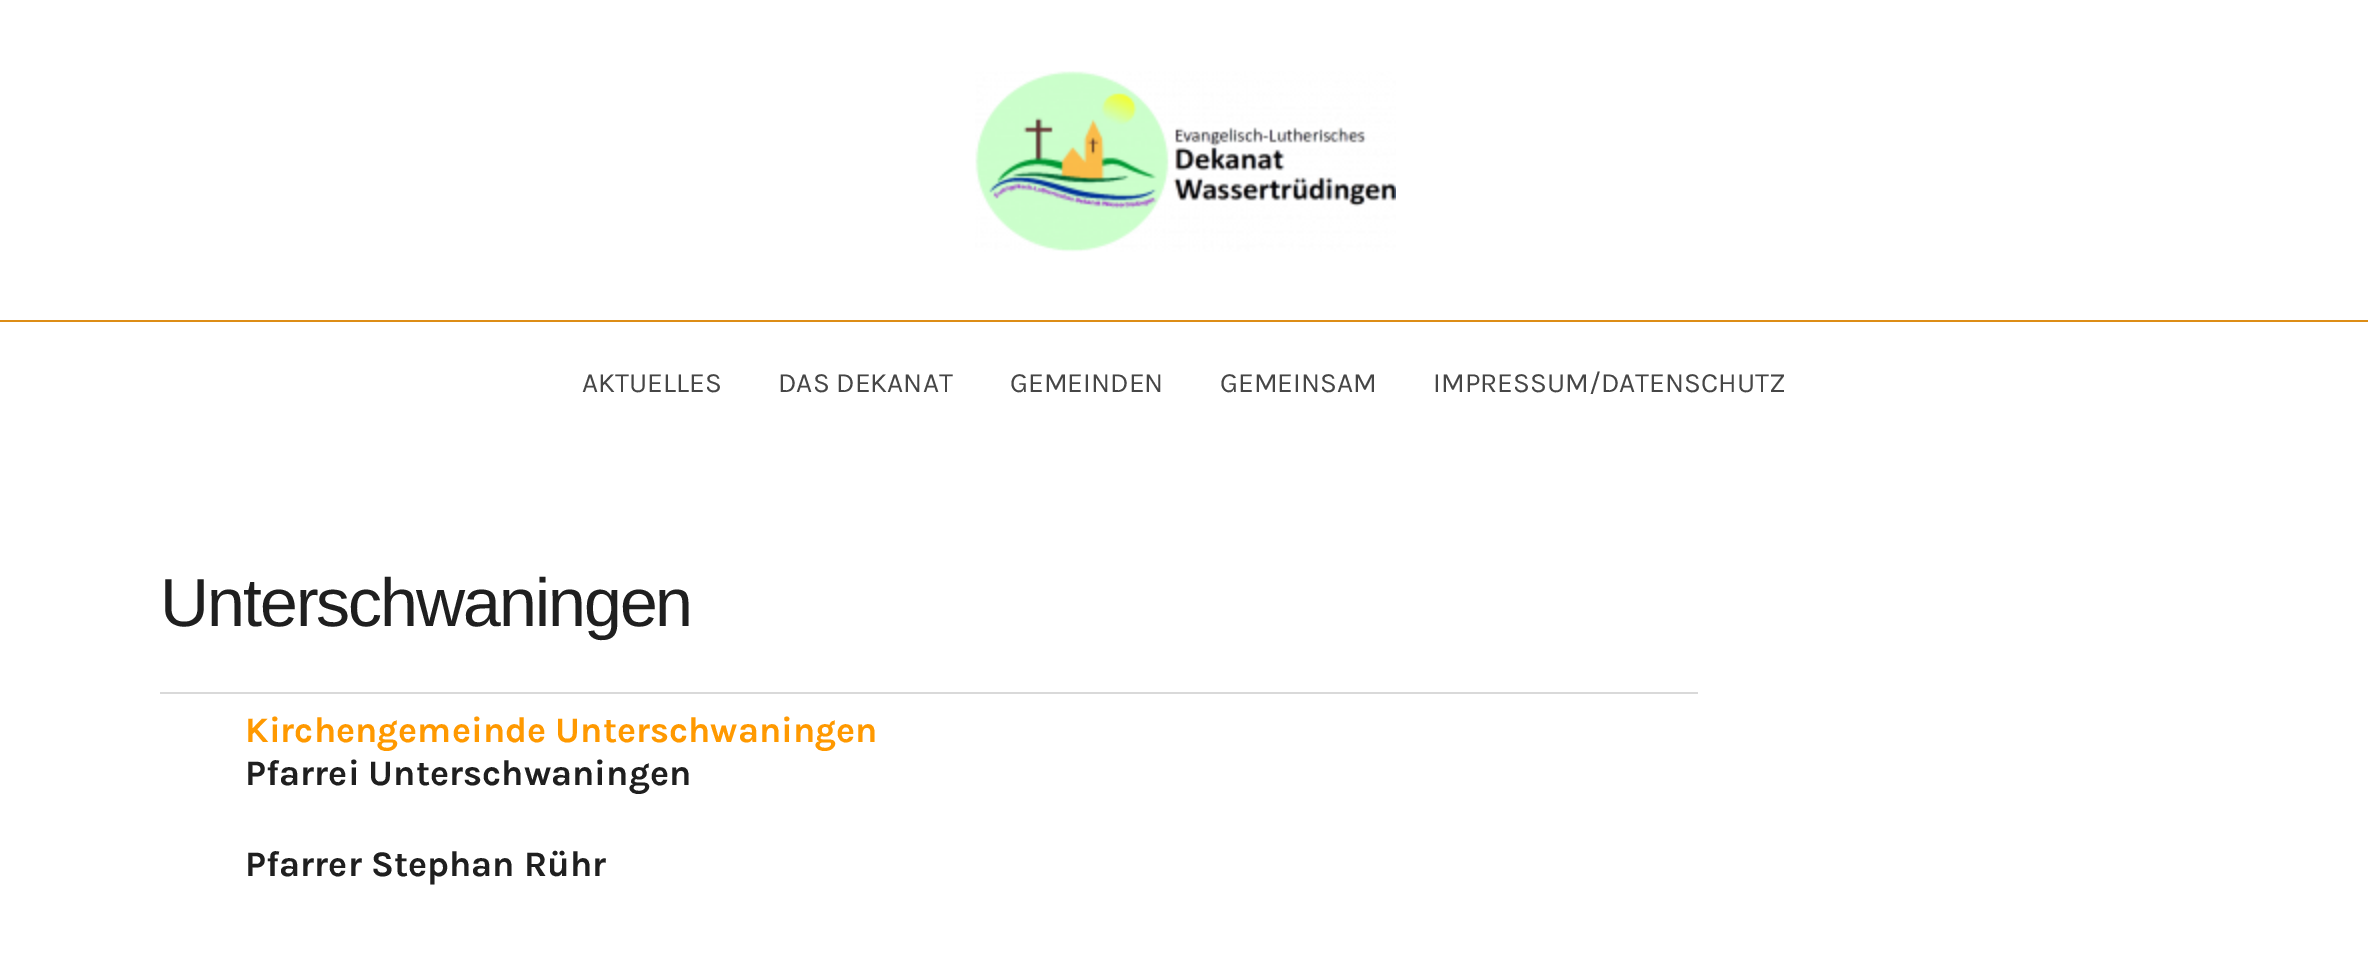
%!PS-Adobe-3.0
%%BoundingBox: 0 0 2368 954
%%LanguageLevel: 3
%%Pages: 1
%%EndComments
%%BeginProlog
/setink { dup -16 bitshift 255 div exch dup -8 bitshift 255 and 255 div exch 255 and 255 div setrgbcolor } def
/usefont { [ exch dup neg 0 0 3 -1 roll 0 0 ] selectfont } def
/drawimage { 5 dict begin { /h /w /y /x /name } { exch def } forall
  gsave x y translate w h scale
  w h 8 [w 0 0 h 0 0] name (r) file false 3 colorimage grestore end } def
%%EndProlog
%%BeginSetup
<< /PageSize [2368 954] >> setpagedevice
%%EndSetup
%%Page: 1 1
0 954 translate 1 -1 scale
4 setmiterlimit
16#FFFFFF setink
0 0 2368 954 rectfill
(img1.raw) 975 71 421 181 drawimage
16#DD8D16 setink
0 320 2368 2 rectfill
/Karla-Regular 28 usefont
16#464646 setink
[
    [(AKTUELLES) 582 392]
    [(DAS DEKANAT) 778 392]
    [(GEMEINDEN) 1010 392]
    [(GEMEINSAM) 1220 392]
    [(IMPRESSUM/DATENSCHUTZ) 1433 392]
] { aload pop moveto show } forall
/LiberationSans-Regular 68 usefont
16#1F1F1F setink
160 626 moveto -2 0 (Unterschwaningen) ashow
16#D9D9D9 setink
160 692 1538 2 rectfill
/Karla-Bold 36 usefont
16#FF9900 setink
245 742 moveto (Kirchengemeinde Unterschwaningen) show
16#1F1F1F setink
245 785 moveto (Pfarrei Unterschwaningen) show
245 876 moveto (Pfarrer Stephan Rühr) show
showpage
%%EOF
